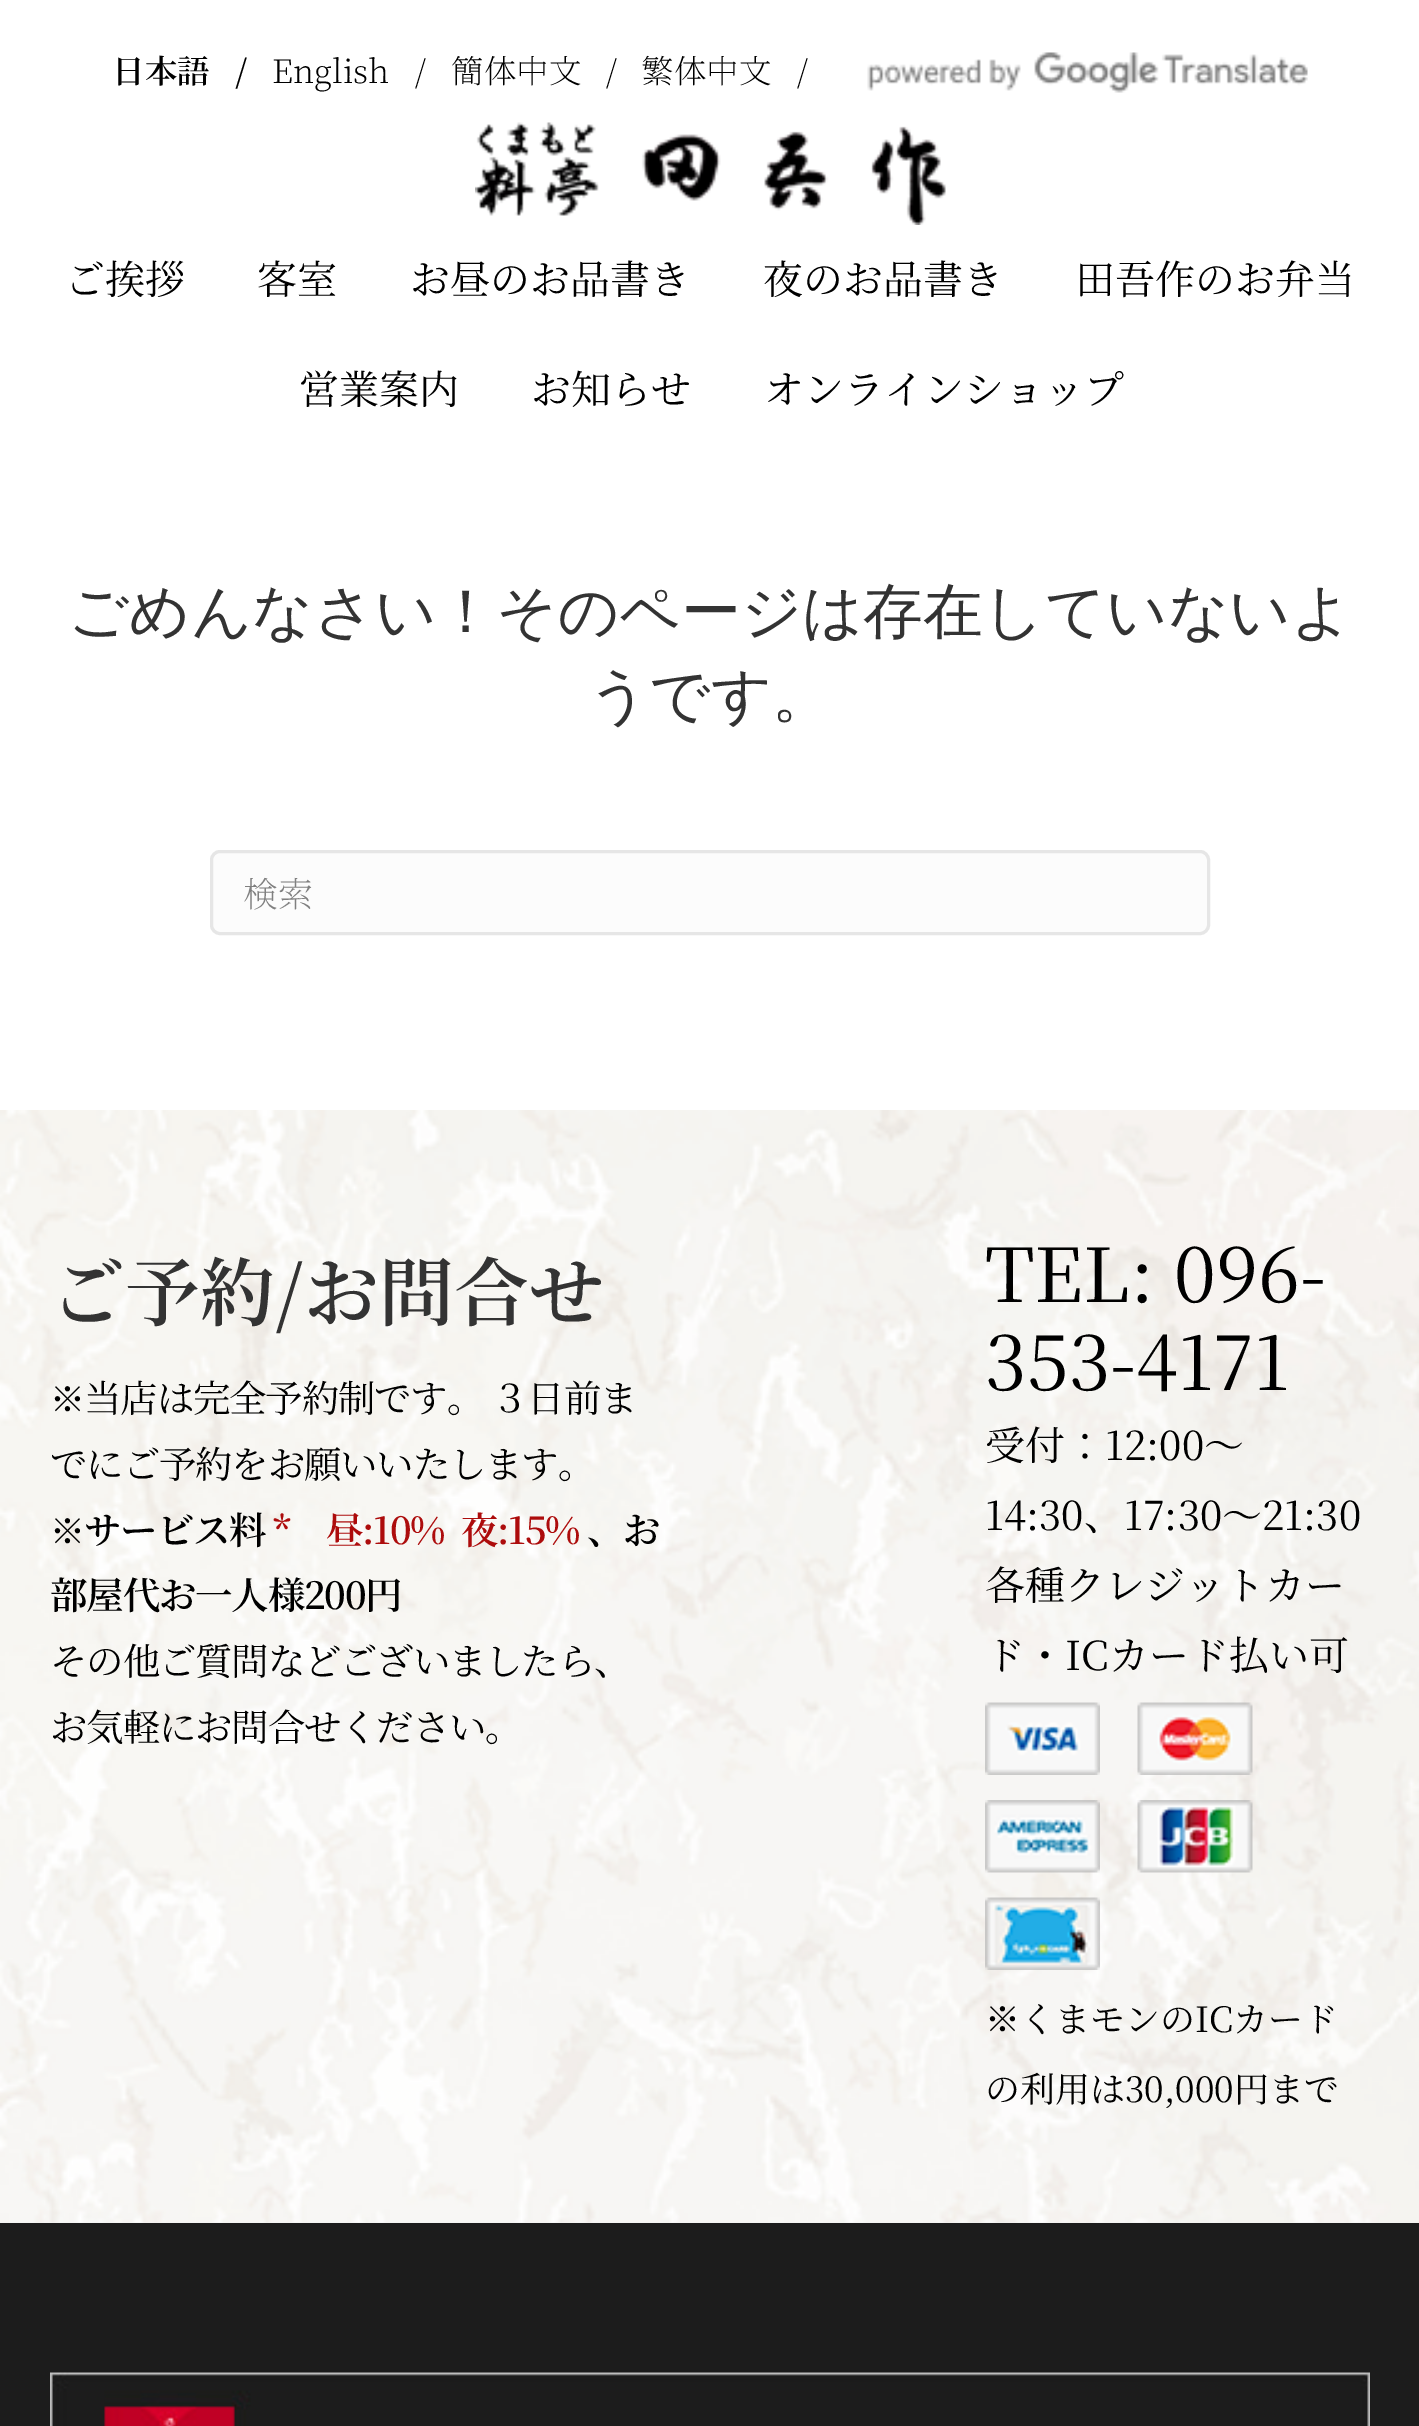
%!PS-Adobe-3.0
%%BoundingBox: 0 0 1419 2426
%%LanguageLevel: 3
%%Pages: 1
%%EndComments
%%BeginProlog
/setink { dup -16 bitshift 255 div exch dup -8 bitshift 255 and 255 div exch 255 and 255 div setrgbcolor } def
/usefont { [ exch dup neg 0 0 3 -1 roll 0 0 ] selectfont } def
/rrect { 5 dict begin { /r /h /w /y /x } { exch def } forall
  x r add y moveto x w add y 2 copy h add r arct x w add y h add x 1 index r arct
  x y h add x y r arct x y 2 copy exch w add exch r arct closepath end } def
/drawimage { 5 dict begin { /h /w /y /x /name } { exch def } forall
  gsave x y translate w h scale
  w h 8 [w 0 0 h 0 0] name (r) file false 3 colorimage grestore end } def
%%EndProlog
%%BeginSetup
<< /PageSize [1419 2426] >> setpagedevice
%%EndSetup
%%Page: 1 1
0 2426 translate 1 -1 scale
4 setmiterlimit
16#F2F2F2 setink
0 0 1419 2426 rectfill
16#FFFFFF setink
0 0 1419 1110 rectfill
/NotoSerifJP-SemiBold 32.5 usefont
16#000000 setink
112 83 moveto (日本語) show
235 83 moveto (/) show
/NotoSerifJP-ExtraLight 32.5 usefont
[
    [(English) 272 83]
    [(/) 415 83]
    [(簡体中文) 451 83]
    [(/) 606 83]
    [(繁体中文) 641 83]
    [(/) 797 83]
] { aload pop moveto show } forall
(img1.raw) 867 52 441 41 drawimage
(img2.raw) 475 122 471 103 drawimage
/NotoSerifJP-Regular 40 usefont
[
    [(ご挨拶) 65 294]
    [(客室) 257 294]
    [(お昼のお品書き) 410 294]
    [(夜のお品書き) 763 294]
    [(田吾作のお弁当) 1075 294]
    [(営業案内) 299 404]
    [(お知らせ) 531 404]
    [(オンラインショップ) 764 404]
] { aload pop moveto show } forall
/WenQuanYiZenHei-Medium 60 usefont
16#333333 setink
68 632 moveto (ごめんなさい！そのページは存在していないよ) show
588 716 moveto (うです。) show
16#FCFCFC setink
211.5 851.5 997 82 8.5 rrect gsave fill grestore
16#E6E6E6 setink
3 setlinewidth
stroke
/NotoSerifJP-ExtraLight 35 usefont
16#808080 setink
243 907 moveto (検索) show
(img3.raw) 0 1110 1419 1113 drawimage
/NotoSerifJP-SemiBold 75 usefont
16#333333 setink
50 1320 moveto (ご予約/お問合せ) show
/NotoSerifJP-Regular 35 usefont
16#000000 setink
50 1412 moveto -1.25 0 (※) ashow
/NotoSerifJP-Regular 37.5 usefont
84 1412 moveto -1.25 0 (当店は完全予約制です。 ３日前ま) ashow
50 1478 moveto -1.25 0 (でにご予約をお願いいたします。) ashow
/NotoSerifJP-Regular 35 usefont
50 1544 moveto -1.25 0 (※) ashow
/NotoSerifJP-SemiBold 37.5 usefont
84 1544 moveto -1.25 0 (サービス料) ashow
16#AD0C0C setink
273 1544 moveto -1.25 0 (*) ashow
326 1544 moveto -1.25 0 (昼:10%  夜:15%) ashow
16#000000 setink
587 1544 moveto -1.25 0 (、お) ashow
50 1609 moveto -1.25 0 (部屋代お一人様200円) ashow
/NotoSerifJP-Regular 37.5 usefont
50 1675 moveto -1.25 0 (その他ご質問などございましたら、) ashow
50 1741 moveto -1.25 0 (お気軽にお問合せください。) ashow
/NotoSerifJP-Regular 75 usefont
985 1302 moveto (TEL: 096-) show
985 1390 moveto (353-4171) show
/NotoSerifJP-Regular 40 usefont
[
    [(受付：12:00～) 985 1460]
    [(14:30、17:30～21:30) 985 1530]
    [(各種クレジットカー) 985 1600]
    [(ド・ICカード払い可) 985 1670]
] { aload pop moveto show } forall
(img4.raw) 985 1702 115 73 drawimage
(img5.raw) 1137 1702 116 73 drawimage
(img6.raw) 985 1800 115 73 drawimage
(img7.raw) 1137 1800 116 73 drawimage
(img8.raw) 985 1897 115 73 drawimage
/NotoSerifJP-Regular 35 usefont
985 2032 moveto (※くまモンのICカード) show
985 2102 moveto (の利用は30,000円まで) show
16#1C1C1C setink
0 2223 1419 203 rectfill
(img9.raw) 50 2372 1320 54 drawimage
showpage
%%EOF
